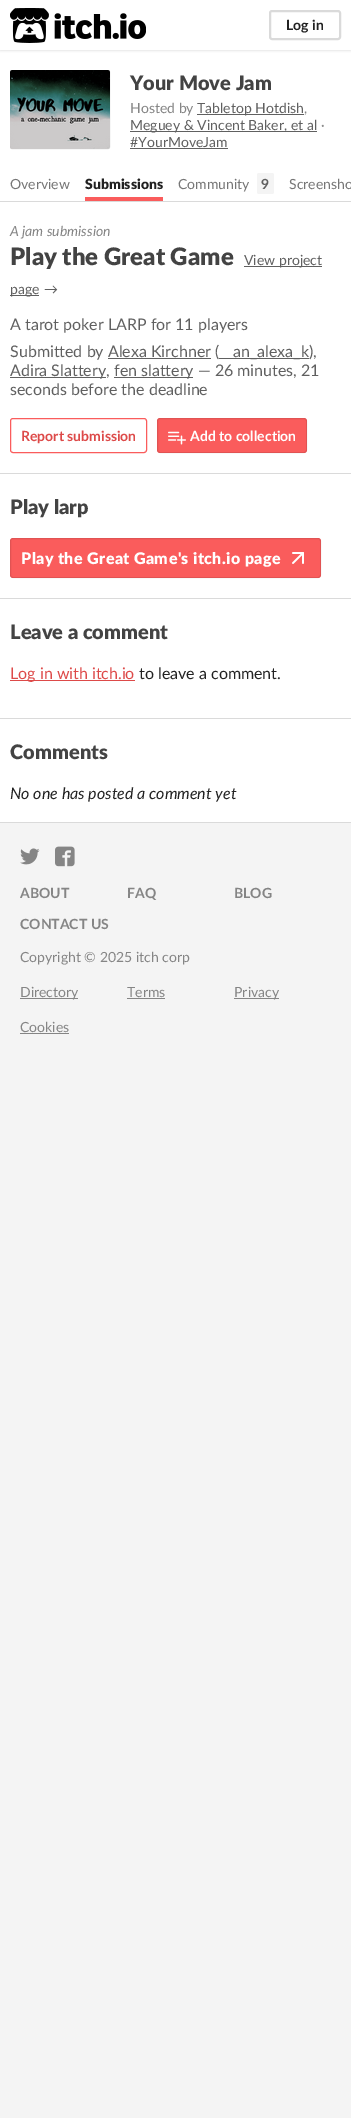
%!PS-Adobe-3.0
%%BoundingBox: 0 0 351 2118
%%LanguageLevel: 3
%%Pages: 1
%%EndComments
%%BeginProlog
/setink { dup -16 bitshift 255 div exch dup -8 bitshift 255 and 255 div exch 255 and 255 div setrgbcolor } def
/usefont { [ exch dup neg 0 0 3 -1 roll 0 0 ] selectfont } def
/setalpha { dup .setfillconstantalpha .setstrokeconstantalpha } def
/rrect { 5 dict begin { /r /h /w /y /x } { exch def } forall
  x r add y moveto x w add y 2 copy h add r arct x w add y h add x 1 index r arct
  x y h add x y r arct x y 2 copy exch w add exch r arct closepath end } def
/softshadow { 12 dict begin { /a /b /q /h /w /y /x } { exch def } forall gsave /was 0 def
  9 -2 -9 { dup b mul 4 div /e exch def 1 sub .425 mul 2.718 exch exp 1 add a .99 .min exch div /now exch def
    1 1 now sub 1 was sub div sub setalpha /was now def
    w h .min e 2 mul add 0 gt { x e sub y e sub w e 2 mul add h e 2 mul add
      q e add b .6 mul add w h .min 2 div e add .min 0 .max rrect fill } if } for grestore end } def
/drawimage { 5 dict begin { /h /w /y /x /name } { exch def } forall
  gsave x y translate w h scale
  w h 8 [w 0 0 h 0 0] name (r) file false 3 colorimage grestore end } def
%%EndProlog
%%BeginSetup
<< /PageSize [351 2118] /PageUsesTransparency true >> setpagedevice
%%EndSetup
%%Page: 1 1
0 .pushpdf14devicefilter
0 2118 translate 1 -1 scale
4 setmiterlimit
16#F4F4F4 setink
0 0 351 2118 rectfill
16#FFFFFF setink
0 50 351 772 rectfill
16#000000 setink
0 1 351 50 0 1 0.1 softshadow
16#FFFFFF setink
0 0 351 50 rectfill
(img1.raw) 10 8 136 35 drawimage
16#DADADA setink
2 setlinewidth
270 11 70 28 2 rrect stroke
/Lato-Bold 14 usefont
16#222222 setink
286 30 moveto (Log in) show
16#DADADA setink
0 822 351 1 rectfill
0 201 351 1 rectfill
16#DCDCDC setink
1 setlinewidth
10.5 70.5 99 78 1.5 rrect stroke
(img2.raw) 10 70 100 79 drawimage
/Lato-Black 20 usefont
16#434343 setink
130 90 moveto (Your Move Jam) show
/Lato-Regular 14 usefont
16#858585 setink
130 113 moveto (Hosted by) show
16#606060 setink
197 114 107 1 rectfill
197 113 moveto (Tabletop Hotdish) show
16#858585 setink
304 113 moveto (,) show
16#606060 setink
130 131 187 1 rectfill
130 130 moveto (Meguey & Vincent Baker, et al) show
16#858585 setink
321 130 moveto (·) show
16#606060 setink
130 147 moveto (#YourMoveJam) show
130 148 98 1 rectfill
16#767676 setink
10 189 moveto (Overview) show
16#FA5C5C setink
85 197 78 4 rectfill
/Lato-Black 14 usefont
16#222222 setink
85 189 moveto (Submissions) show
/Lato-Regular 14 usefont
16#767676 setink
178 189 moveto (Community) show
16#F4F4F4 setink
257 173 17 21 2 rrect fill
/Lato-Bold 14 usefont
16#606060 setink
261 189 moveto (9) show
/Lato-Regular 14 usefont
16#767676 setink
289 189 moveto (Screensho) show
16#DADADA setink
0 473 351 1 rectfill
/Lato-Italic 14 usefont
16#858585 setink
10 236 moveto (A jam submission) show
/Lato-Black 24 usefont
16#434343 setink
10 265 moveto (Play the Great Game) show
16#606060 setink
244 266 78 1 rectfill
/Lato-Regular 14 usefont
244 265 moveto (View project) show
10 295 29 1 rectfill
10 294 moveto (page) show
44 294 moveto (→) show
/Lato-Regular 16 usefont
10 330 moveto (A tarot poker LARP for 11 players) show
10 357 moveto (Submitted by Alexa Kirchner \() show
219 358 90 1 rectfill
233 357 moveto (an_alexa_k\),) show
108 358 103 1 rectfill
10 377 96 1 rectfill
10 376 moveto (Adira Slattery,) show
114 377 79 1 rectfill
114 376 moveto (fen slattery — 26 minutes, 21) show
10 395 moveto (seconds before the deadline) show
16#FA5C5C setink
10.5 418.5 136 34 2.5 rrect stroke
/Lato-Bold 14 usefont
16#DD4A49 setink
21 441 moveto (Report submission) show
16#FA5C5C setink
157 418 150 35 3 rrect fill
0.1 setalpha
16#000000 setink
157.5 418.5 149 34 2.5 rrect stroke
1 setalpha
(img3.raw) 168 431 18 14 drawimage
16#FFFFFF setink
190 441 moveto (Add to collection) show
16#DADADA setink
0 598 351 1 rectfill
/Lato-Black 20 usefont
16#434343 setink
10 514 moveto (Play larp) show
16#FA5C5C setink
10 538 311 40 3 rrect fill
0.1 setalpha
16#000000 setink
10.5 538.5 310 39 2.5 rrect stroke
/Lato-Black 16 usefont
1 setalpha
16#FFFFFF setink
21 564 moveto 0.4 0 (Play the Great Game's itch.io page) ashow
(img4.raw) 292 552 12 12 drawimage
16#DADADA setink
0 718 351 1 rectfill
/Lato-Black 20 usefont
16#434343 setink
10 639 moveto (Leave a comment) show
16#DD4A49 setink
10 680 125 1 rectfill
/Lato-Regular 16 usefont
10 679 moveto (Log in with itch.io) show
16#222222 setink
139 679 moveto (to leave a comment.) show
/Lato-Black 20 usefont
16#434343 setink
10 759 moveto (Comments) show
/Lato-Italic 16 usefont
16#222222 setink
10 799 moveto (No one has posted a comment yet) show
(img5.raw) 20 848 20 17 drawimage
(img6.raw) 55 846 20 21 drawimage
/Lato-Bold 14 usefont
16#858585 setink
[
    [(ABOUT) 20 898]
    [(FAQ) 127 898]
    [(BLOG) 234 898]
    [(CONTACT US) 20 929]
] { aload pop moveto show } forall
/Lato-Regular 14 usefont
20 962 moveto (Copyright © 2025 itch corp) show
20 998 58 1 rectfill
20 997 moveto (Directory) show
127 997 moveto (Terms) show
127 998 38 1 rectfill
234 998 45 1 rectfill
234 997 moveto (Privacy) show
20 1032 moveto (Cookies) show
20 1033 49 1 rectfill
.poppdf14devicefilter showpage
%%EOF
